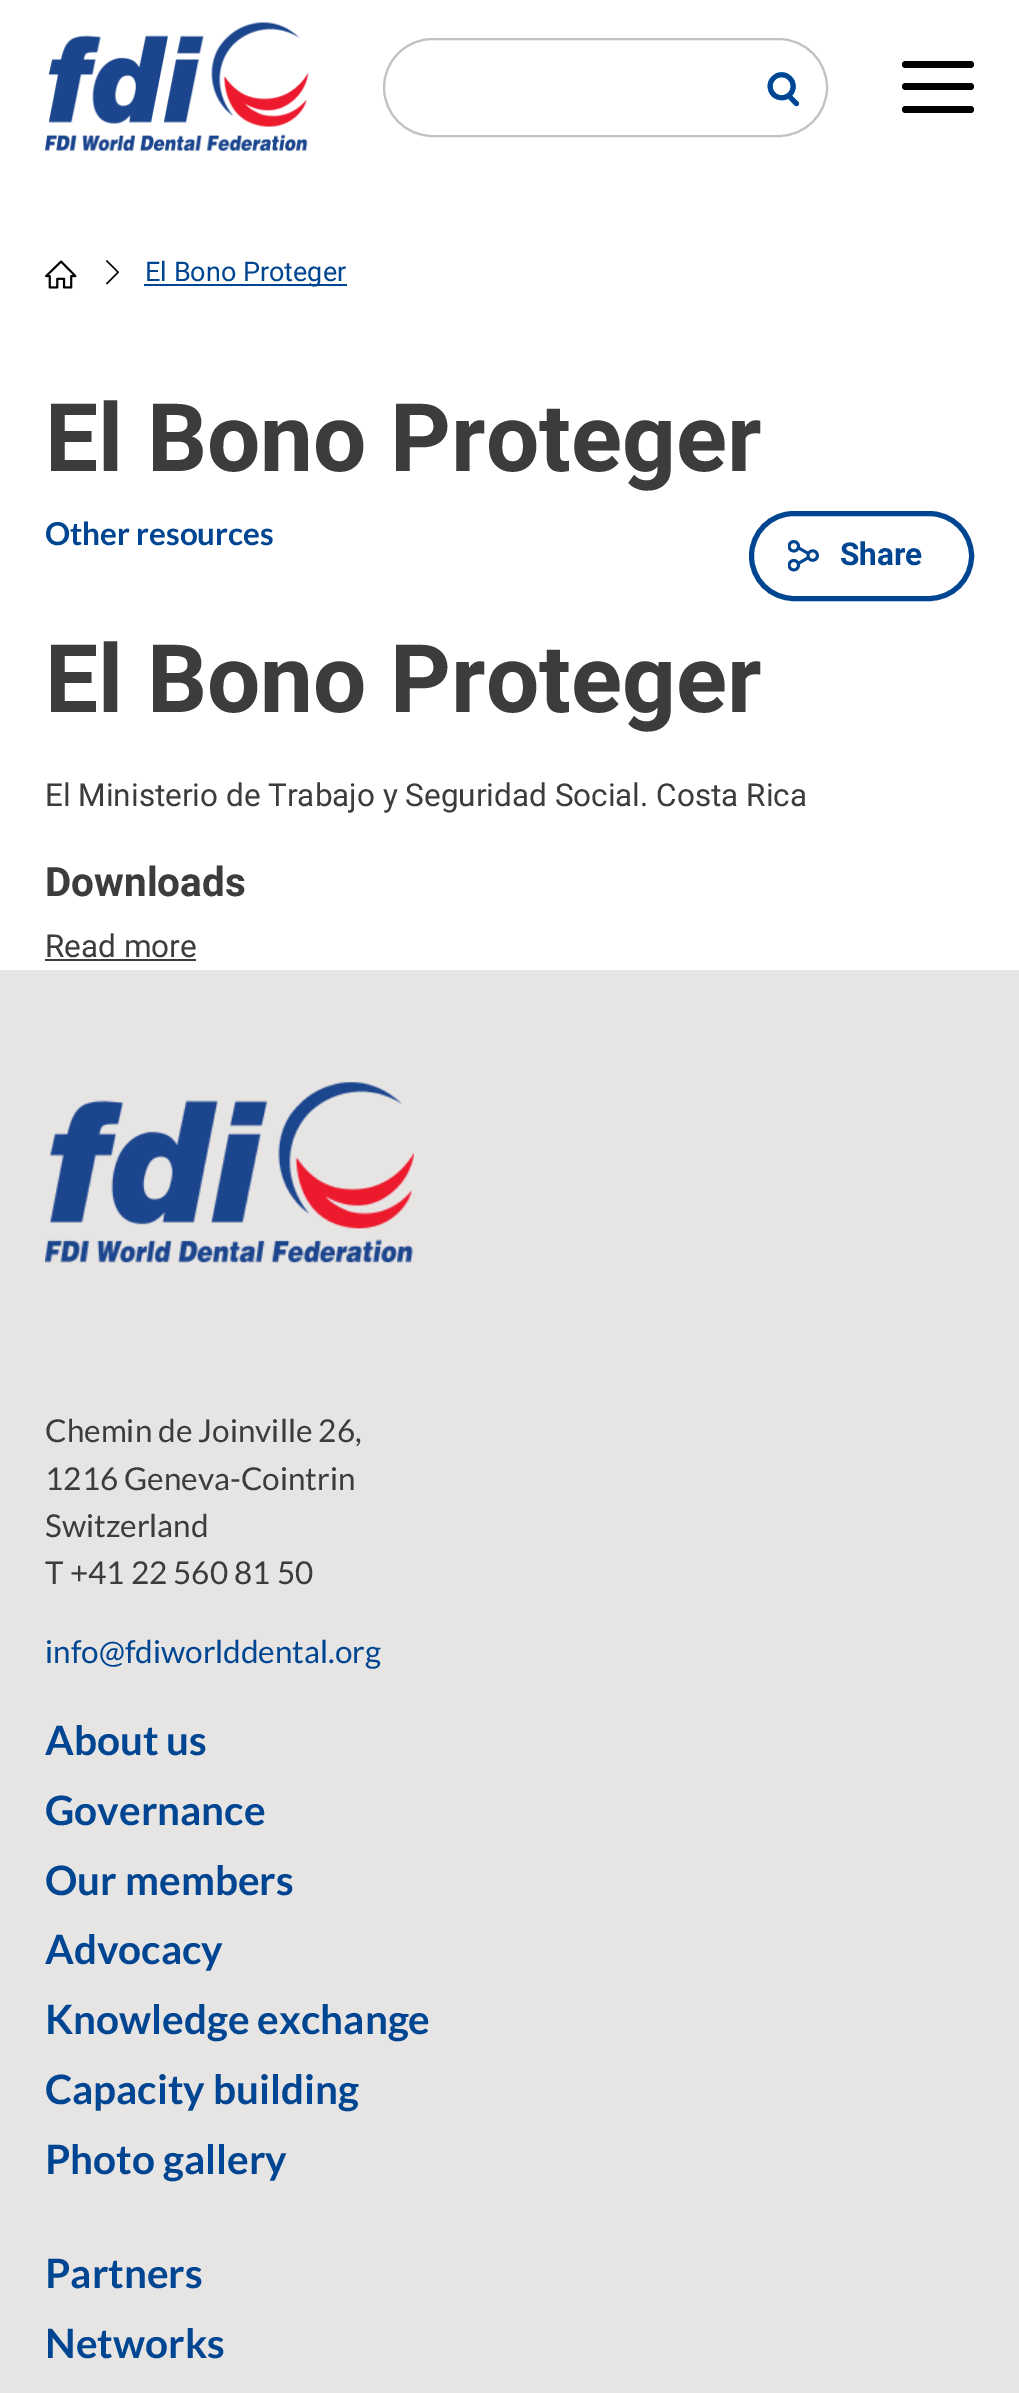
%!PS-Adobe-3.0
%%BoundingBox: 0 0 1019 2393
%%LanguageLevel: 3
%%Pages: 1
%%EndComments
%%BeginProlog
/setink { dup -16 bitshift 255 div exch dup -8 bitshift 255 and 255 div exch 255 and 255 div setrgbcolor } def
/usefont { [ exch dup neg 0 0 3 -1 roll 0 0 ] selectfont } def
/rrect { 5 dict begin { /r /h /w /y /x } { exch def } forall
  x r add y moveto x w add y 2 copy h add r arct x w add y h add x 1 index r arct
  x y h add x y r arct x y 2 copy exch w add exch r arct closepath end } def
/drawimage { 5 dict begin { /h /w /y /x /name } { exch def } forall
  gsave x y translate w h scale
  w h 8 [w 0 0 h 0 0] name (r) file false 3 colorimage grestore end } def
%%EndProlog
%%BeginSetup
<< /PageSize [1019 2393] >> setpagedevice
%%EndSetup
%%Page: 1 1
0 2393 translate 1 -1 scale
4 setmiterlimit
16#FFFFFF setink
0 0 1019 2393 rectfill
(img1.raw) 45 22 264 129 drawimage
16#C1C1C1 setink
2 setlinewidth
384 39 443 97 48.5 rrect stroke
(img2.raw) 767 72 32 35 drawimage
16#000000 setink
902 61 72 7 3.5 rrect fill
902 83 72 7 3.5 rrect fill
902 106 72 7 3.5 rrect fill
(img3.raw) 45 260 32 29 drawimage
(img4.raw) 106 260 13 25 drawimage
16#004591 setink
144 284 203 2 rectfill
/Roboto-Regular 27 usefont
145 281 moveto (El Bono Proteger) show
/Roboto-Bold 94.5 usefont
16#3C3C3C setink
45 471 moveto (El Bono Proteger) show
/Lato-Bold 31.5 usefont
16#004591 setink
45 545 moveto (Other resources) show
/Roboto-Bold 94.5 usefont
16#3C3C3C setink
45 712 moveto (El Bono Proteger) show
/Roboto-Regular 31.5 usefont
45 806 moveto (El Ministerio de Trabajo y Seguridad Social. Costa Rica) show
/Roboto-Bold 40.5 usefont
45 896 moveto (Downloads) show
/Roboto-Regular 31.5 usefont
45 957 moveto (Read more) show
45 959 151 2 rectfill
16#004591 setink
5 setlinewidth
751.5 513.5 220 85 42.5 rrect stroke
(img5.raw) 788 540 31 32 drawimage
/Roboto-Bold 31.5 usefont
840 565 moveto (Share) show
16#E7E4E4 setink
0 970 1019 1423 rectfill
(img6.raw) 45 1082 369 181 drawimage
/Lato-Regular 31.5 usefont
16#3C3C3C setink
[
    [(Chemin de Joinville 26,) 45 1442]
    [(1216 Geneva-Cointrin) 45 1490]
    [(Switzerland) 45 1537]
    [(T +41 22 560 81 50) 45 1584]
] { aload pop moveto show } forall
16#004591 setink
45 1663 moveto (info@fdiworlddental.org) show
/Lato-Bold 40.5 usefont
[
    [(About us) 45 1755]
    [(Governance) 45 1825]
    [(Our members) 45 1895]
    [(Advocacy) 45 1964]
    [(Knowledge exchange) 45 2034]
    [(Capacity building) 45 2104]
    [(Photo gallery) 45 2174]
    [(Partners) 45 2288]
    [(Networks) 45 2358]
] { aload pop moveto show } forall
showpage
%%EOF
